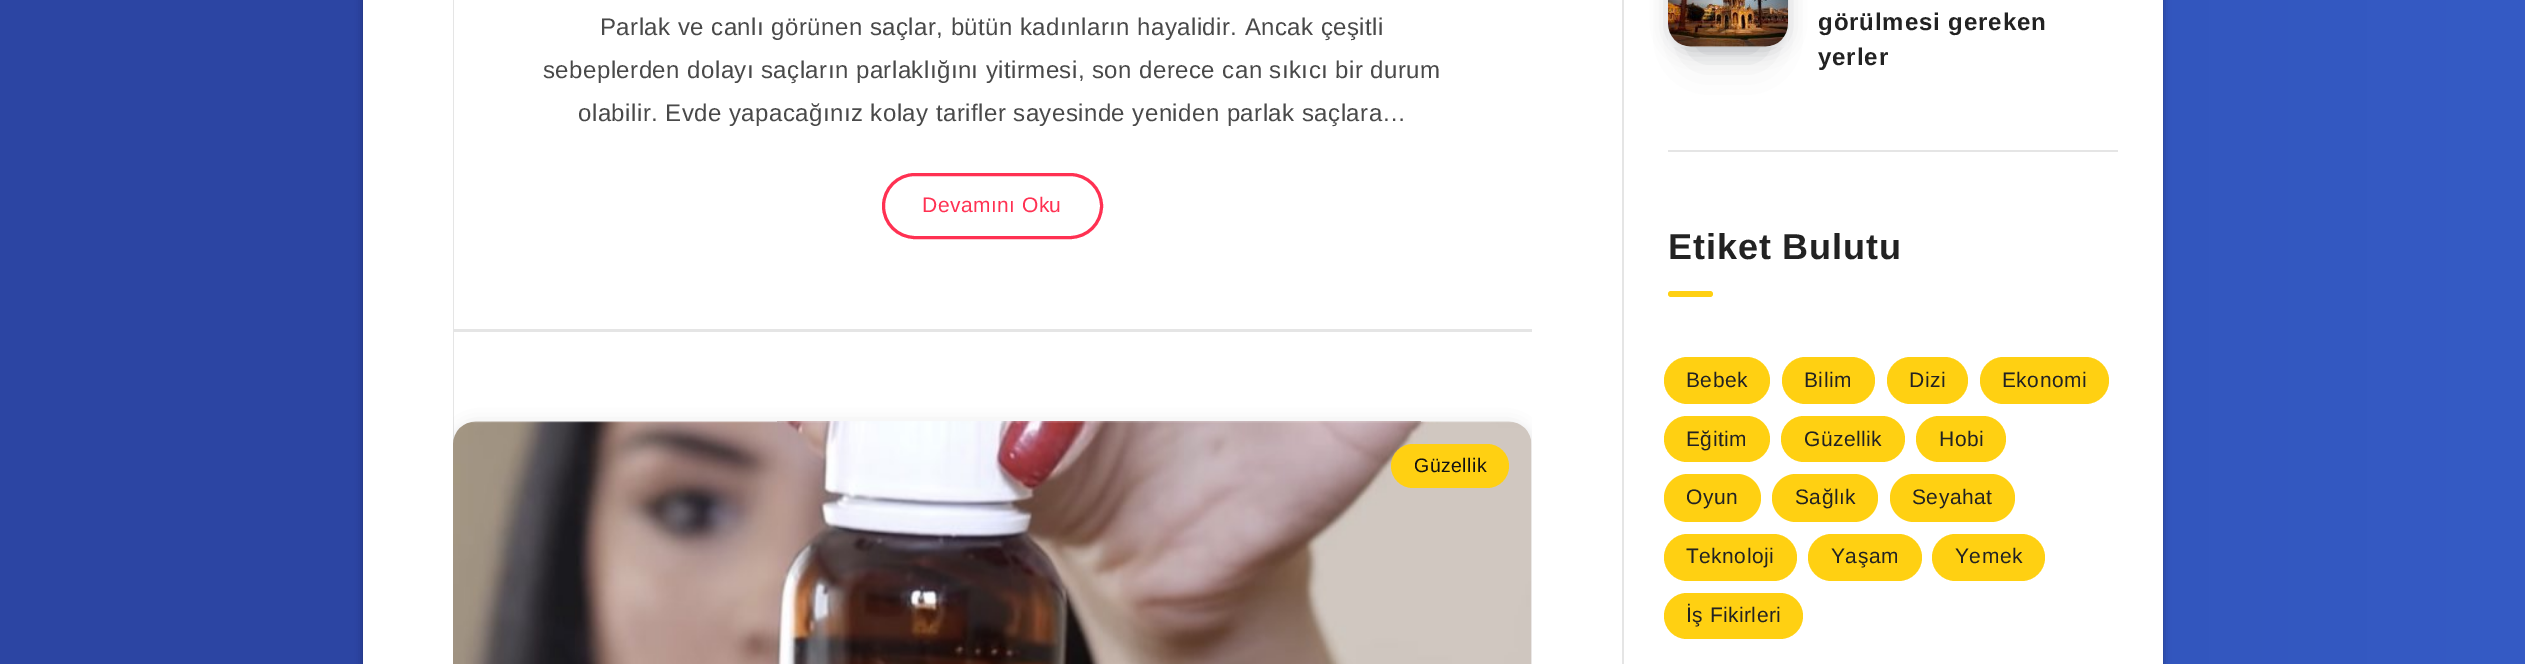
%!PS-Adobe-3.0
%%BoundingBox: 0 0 2525 664
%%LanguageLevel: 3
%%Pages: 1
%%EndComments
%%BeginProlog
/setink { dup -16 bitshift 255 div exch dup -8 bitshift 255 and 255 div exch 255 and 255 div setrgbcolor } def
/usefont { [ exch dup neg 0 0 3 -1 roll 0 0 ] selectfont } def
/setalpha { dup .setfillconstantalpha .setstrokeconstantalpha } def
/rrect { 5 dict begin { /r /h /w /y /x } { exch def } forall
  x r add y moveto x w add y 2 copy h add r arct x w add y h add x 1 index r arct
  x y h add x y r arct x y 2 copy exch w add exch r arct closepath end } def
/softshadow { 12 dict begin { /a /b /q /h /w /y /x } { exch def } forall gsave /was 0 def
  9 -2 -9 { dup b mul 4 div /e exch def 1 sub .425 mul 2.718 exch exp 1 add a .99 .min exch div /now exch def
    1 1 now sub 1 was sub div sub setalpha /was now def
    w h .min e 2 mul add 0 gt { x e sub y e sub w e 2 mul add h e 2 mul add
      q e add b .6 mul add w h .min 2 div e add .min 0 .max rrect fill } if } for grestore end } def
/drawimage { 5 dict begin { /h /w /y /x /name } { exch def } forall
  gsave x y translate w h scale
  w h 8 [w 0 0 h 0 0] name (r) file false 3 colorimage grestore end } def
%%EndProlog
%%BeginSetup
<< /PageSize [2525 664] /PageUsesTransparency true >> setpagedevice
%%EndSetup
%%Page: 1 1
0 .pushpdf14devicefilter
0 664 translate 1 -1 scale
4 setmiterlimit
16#FFFFFF setink
0 0 2525 664 rectfill
gsave 0 0 moveto 2525 0 lineto 2525 664 lineto 0 664 lineto closepath clip newpath
<< /ShadingType 2 /ColorSpace /DeviceRGB /Coords [0 -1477 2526 -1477] /Extend [true true] /Function << /FunctionType 3 /Domain [0 1] /Functions [<< /FunctionType 2 /Domain [0 1] /C0 [0.173 0.271 0.639] /C1 [0.173 0.271 0.639] /N 1 >> << /FunctionType 2 /Domain [0 1] /C0 [0.173 0.271 0.639] /C1 [0.208 0.357 0.773] /N 1 >>] /Bounds [0.3] /Encode [0 1 0 1] >> >> shfill grestore
16#000000 setink
363 -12 1800 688 0 4 0.3 softshadow
[
    [363 0 1800 664 16#FFFFFF]
    [1622 0 2 664 16#E5E5E5]
    [453 329 1079 3 16#E5E5E5]
    [453 0 1 444 16#E5E5E5]
] { aload pop setink rectfill } forall
/LiberationSans-Regular 24 usefont
16#494949 setink
600 35 moveto 0.45 0 (Parlak ve canlı görünen saçlar, bütün kadınların hayalidir. Ancak çeşitli) ashow
543 78 moveto 0.45 0 (sebeplerden dolayı saçların parlaklığını yitirmesi, son derece can sıkıcı bir durum) ashow
578 121 moveto 0.45 0 (olabilir. Evde yapacağınız kolay tarifler sayesinde yeniden parlak saçlara…) ashow
16#FF3152 setink
3 setlinewidth
883.5 174.5 218 63 31.5 rrect stroke
/LiberationSans-Regular 21 usefont
922 212 moveto 0.45 0 (Devamını Oku) ashow
gsave
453 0 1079 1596 rectclip
16#070A19 setink
455 428 1075 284 21 9 0.2 softshadow
grestore
(img1.raw) 453 421 1079 243 drawimage
16#FFD012 setink
1391 444 118 44 22 rrect fill
/LiberationSans-Regular 19.5 usefont
16#111111 setink
1414 472 moveto 0.45 0 (Güzellik) ashow
16#E5E5E5 setink
1668 150 450 2 rectfill
16#070A19 setink
1698 -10 60 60 0 20 0.2 softshadow
1670 -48 117 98 21 9 0.2 softshadow
(img2.raw) 1668 0 120 47 drawimage
/LiberationSans-Bold 24 usefont
16#222222 setink
1818 30 moveto 0.9 0 (görülmesi gereken) ashow
1818 65 moveto 0.9 0 (yerler) ashow
/LiberationSans-Bold 36 usefont
1668 259 moveto 0.9 0 (Etiket Bulutu) ashow
16#FFD012 setink
1668 291 45 6 3 rrect fill
1664 357 106 47 23.5 rrect fill
/LiberationSans-Regular 21 usefont
16#222222 setink
1686 387 moveto 0.45 0 (Bebek) ashow
16#FFD012 setink
1782 357 93 47 23.5 rrect fill
16#222222 setink
1804 387 moveto 0.45 0 (Bilim) ashow
16#FFD012 setink
1887 357 81 47 23.5 rrect fill
16#222222 setink
1909 387 moveto 0.45 0 (Dizi) ashow
16#FFD012 setink
1980 357 129 47 23.5 rrect fill
16#222222 setink
2002 387 moveto 0.45 0 (Ekonomi) ashow
16#FFD012 setink
1664 416 106 46 23 rrect fill
16#222222 setink
1686 446 moveto 0.45 0 (Eğitim) ashow
16#FFD012 setink
1781 416 124 46 23 rrect fill
16#222222 setink
1804 446 moveto 0.45 0 (Güzellik) ashow
16#FFD012 setink
1916 416 90 46 23 rrect fill
16#222222 setink
1939 446 moveto 0.45 0 (Hobi) ashow
16#FFD012 setink
1664 474 97 48 24 rrect fill
16#222222 setink
1686 504 moveto 0.45 0 (Oyun) ashow
16#FFD012 setink
1772 474 106 48 24 rrect fill
16#222222 setink
1795 504 moveto 0.45 0 (Sağlık) ashow
16#FFD012 setink
1890 474 125 48 24 rrect fill
16#222222 setink
1912 504 moveto 0.45 0 (Seyahat) ashow
16#FFD012 setink
1664 534 133 47 23.5 rrect fill
16#222222 setink
1686 563 moveto 0.45 0 (Teknoloji) ashow
16#FFD012 setink
1808 534 114 47 23.5 rrect fill
16#222222 setink
1831 563 moveto 0.45 0 (Yaşam) ashow
16#FFD012 setink
1932 534 113 47 23.5 rrect fill
16#222222 setink
1955 563 moveto 0.45 0 (Yemek) ashow
16#FFD012 setink
1664 593 139 46 23 rrect fill
16#222222 setink
1686 622 moveto 0.45 0 (İş Fikirleri) ashow
.poppdf14devicefilter showpage
%%EOF
